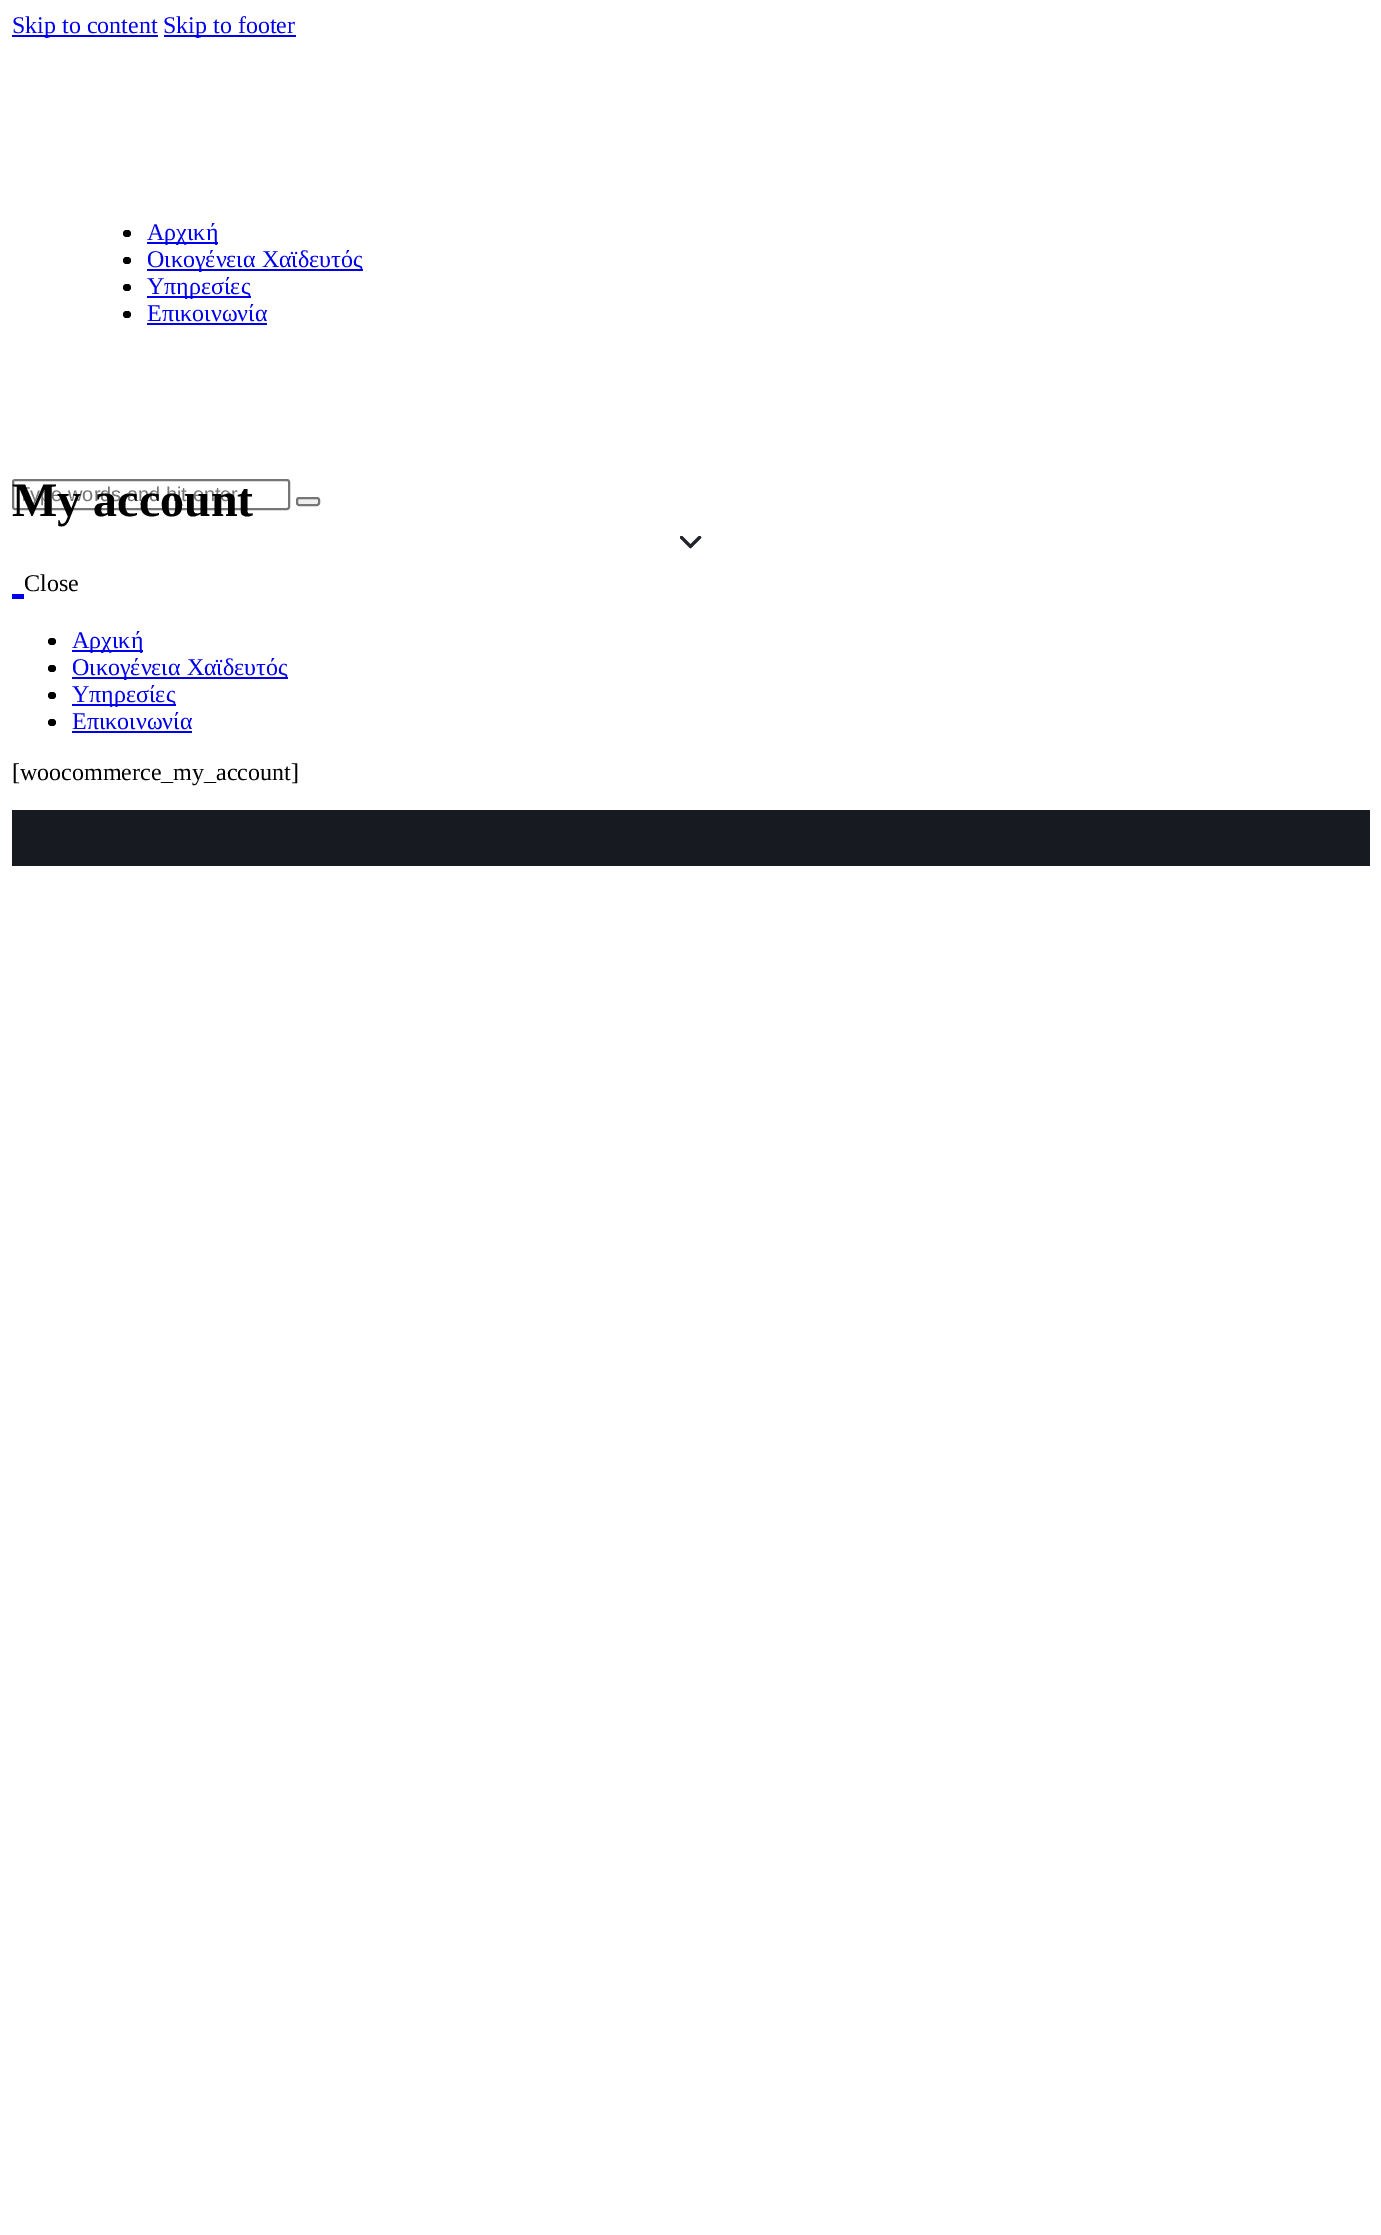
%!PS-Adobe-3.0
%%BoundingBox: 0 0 1381 2235
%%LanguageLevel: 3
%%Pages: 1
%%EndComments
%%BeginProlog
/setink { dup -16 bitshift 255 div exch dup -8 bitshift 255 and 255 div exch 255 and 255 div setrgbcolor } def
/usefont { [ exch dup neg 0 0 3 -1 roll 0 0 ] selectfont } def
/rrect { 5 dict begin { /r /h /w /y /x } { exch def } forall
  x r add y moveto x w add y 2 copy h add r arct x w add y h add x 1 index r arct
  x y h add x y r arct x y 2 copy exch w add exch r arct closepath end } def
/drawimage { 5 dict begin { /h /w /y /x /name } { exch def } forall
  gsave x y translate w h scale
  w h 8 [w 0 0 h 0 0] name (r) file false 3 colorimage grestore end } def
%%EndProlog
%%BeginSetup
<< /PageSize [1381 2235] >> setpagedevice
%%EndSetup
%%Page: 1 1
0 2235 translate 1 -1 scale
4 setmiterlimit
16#FFFFFF setink
0 0 1381 2235 rectfill
16#0000EE setink
12 35 146 2 rectfill
/LiberationSerif-Regular 24 usefont
12 33 moveto (Skip to content) show
164 35 132 2 rectfill
163 33 moveto (Skip to footer) show
16#000000 setink
123 230 8 7 3.5 rrect fill
16#0000EE setink
147 242 71 2 rectfill
147 240 moveto (Αρχική) show
16#000000 setink
123 257 8 7 3.5 rrect fill
16#0000EE setink
147 269 216 2 rectfill
147 267 moveto (Οικογένεια Χαϊδευτός) show
16#000000 setink
123 284 8 7 3.5 rrect fill
16#0000EE setink
147 296 104 2 rectfill
147 294 moveto (Υπηρεσίες) show
16#000000 setink
123 311 8 7 3.5 rrect fill
16#0000EE setink
147 321 moveto (Επικοινωνία) show
147 323 120 2 rectfill
16#767676 setink
2 setlinewidth
13 480 276 29 2 rrect stroke
/LiberationSans-Regular 20 usefont
16#757575 setink
18 501 moveto (Type words and hit enter) show
/LiberationSerif-Bold 48 usefont
16#000000 setink
12 516 moveto (My account) show
(img1.raw) 680 536 22 13 drawimage
16#EFEFEF setink
297 498 22 7 2 rrect gsave fill grestore
16#767676 setink
stroke
/LiberationSerif-Regular 24 usefont
16#000000 setink
24 591 moveto (Close) show
16#0000EE setink
12 594 12 5 rectfill
16#000000 setink
48 638 8 7 3.5 rrect fill
16#0000EE setink
72 650 71 2 rectfill
72 648 moveto (Αρχική) show
16#000000 setink
48 665 8 7 3.5 rrect fill
16#0000EE setink
72 677 216 2 rectfill
72 675 moveto (Οικογένεια Χαϊδευτός) show
16#000000 setink
48 692 8 7 3.5 rrect fill
16#0000EE setink
72 704 104 2 rectfill
72 702 moveto (Υπηρεσίες) show
16#000000 setink
48 719 8 7 3.5 rrect fill
16#0000EE setink
72 729 moveto (Επικοινωνία) show
72 731 120 2 rectfill
16#000000 setink
12 780 moveto ([woocommerce_my_account]) show
16#171A21 setink
12 810 1358 56 rectfill
showpage
%%EOF
